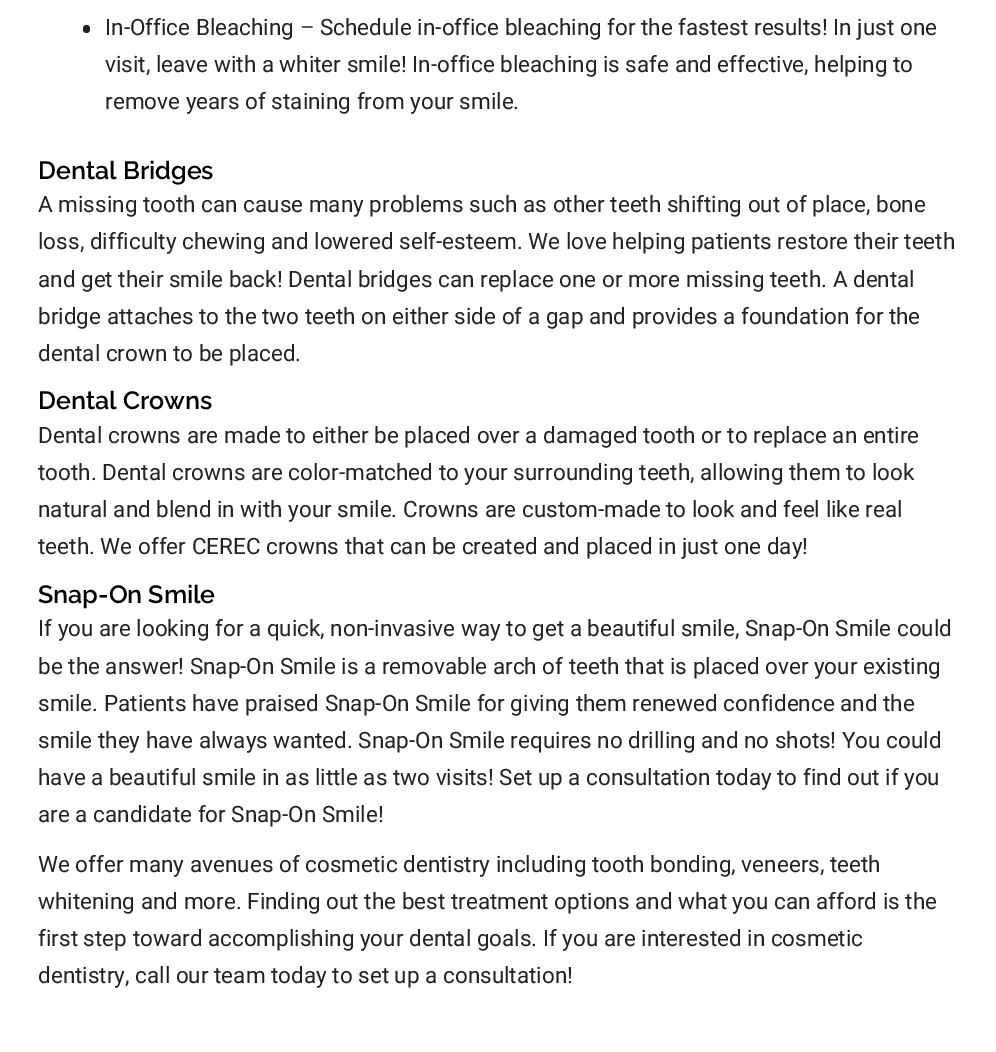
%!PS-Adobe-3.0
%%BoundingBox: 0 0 996 1052
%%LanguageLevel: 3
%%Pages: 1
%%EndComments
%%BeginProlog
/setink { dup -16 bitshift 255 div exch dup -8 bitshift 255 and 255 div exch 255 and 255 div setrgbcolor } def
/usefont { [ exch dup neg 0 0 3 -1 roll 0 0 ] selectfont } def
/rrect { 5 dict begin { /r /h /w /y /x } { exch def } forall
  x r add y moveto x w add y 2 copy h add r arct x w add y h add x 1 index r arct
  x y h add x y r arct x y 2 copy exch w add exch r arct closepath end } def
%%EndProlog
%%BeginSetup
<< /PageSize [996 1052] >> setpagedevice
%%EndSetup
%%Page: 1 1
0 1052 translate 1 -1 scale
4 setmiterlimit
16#FFFFFF setink
0 0 996 1052 rectfill
16#222222 setink
83 25 7 8 3.5 rrect fill
/Roboto-Regular 22.5 usefont
[
    [(In-Office Bleaching – Schedule in-office bleaching for the fastest results! In just one) 105 35]
    [(visit, leave with a whiter smile! In-office bleaching is safe and effective, helping to) 105 72]
    [(remove years of staining from your smile.) 105 109]
] { aload pop moveto show } forall
/Raleway-SemiBold 25 usefont
16#000000 setink
38 179 moveto (Dental Bridges) show
/Roboto-Regular 22.5 usefont
16#222222 setink
[
    [(A missing tooth can cause many problems such as other teeth shifting out of place, bone) 38 212]
    [(loss, difficulty chewing and lowered self-esteem. We love helping patients restore their teeth) 38 249]
    [(and get their smile back! Dental bridges can replace one or more missing teeth. A dental) 38 287]
    [(bridge attaches to the two teeth on either side of a gap and provides a foundation for the) 38 324]
    [(dental crown to be placed.) 38 361]
] { aload pop moveto show } forall
/Raleway-SemiBold 25 usefont
16#000000 setink
38 409 moveto (Dental Crowns) show
/Roboto-Regular 22.5 usefont
16#222222 setink
[
    [(Dental crowns are made to either be placed over a damaged tooth or to replace an entire) 38 443]
    [(tooth. Dental crowns are color-matched to your surrounding teeth, allowing them to look) 38 480]
    [(natural and blend in with your smile. Crowns are custom-made to look and feel like real) 38 517]
    [(teeth. We offer CEREC crowns that can be created and placed in just one day!) 38 554]
] { aload pop moveto show } forall
/Raleway-SemiBold 25 usefont
16#000000 setink
38 603 moveto (Snap-On Smile) show
/Roboto-Regular 22.5 usefont
16#222222 setink
[
    [(If you are looking for a quick, non-invasive way to get a beautiful smile, Snap-On Smile could) 38 636]
    [(be the answer! Snap-On Smile is a removable arch of teeth that is placed over your existing) 38 674]
    [(smile. Patients have praised Snap-On Smile for giving them renewed confidence and the) 38 711]
    [(smile they have always wanted. Snap-On Smile requires no drilling and no shots! You could) 38 748]
    [(have a beautiful smile in as little as two visits! Set up a consultation today to find out if you) 38 785]
    [(are a candidate for Snap-On Smile!) 38 822]
    [(We offer many avenues of cosmetic dentistry including tooth bonding, veneers, teeth) 38 872]
    [(whitening and more. Finding out the best treatment options and what you can afford is the) 38 909]
    [(first step toward accomplishing your dental goals. If you are interested in cosmetic) 38 946]
    [(dentistry, call our team today to set up a consultation!) 38 983]
] { aload pop moveto show } forall
showpage
%%EOF
